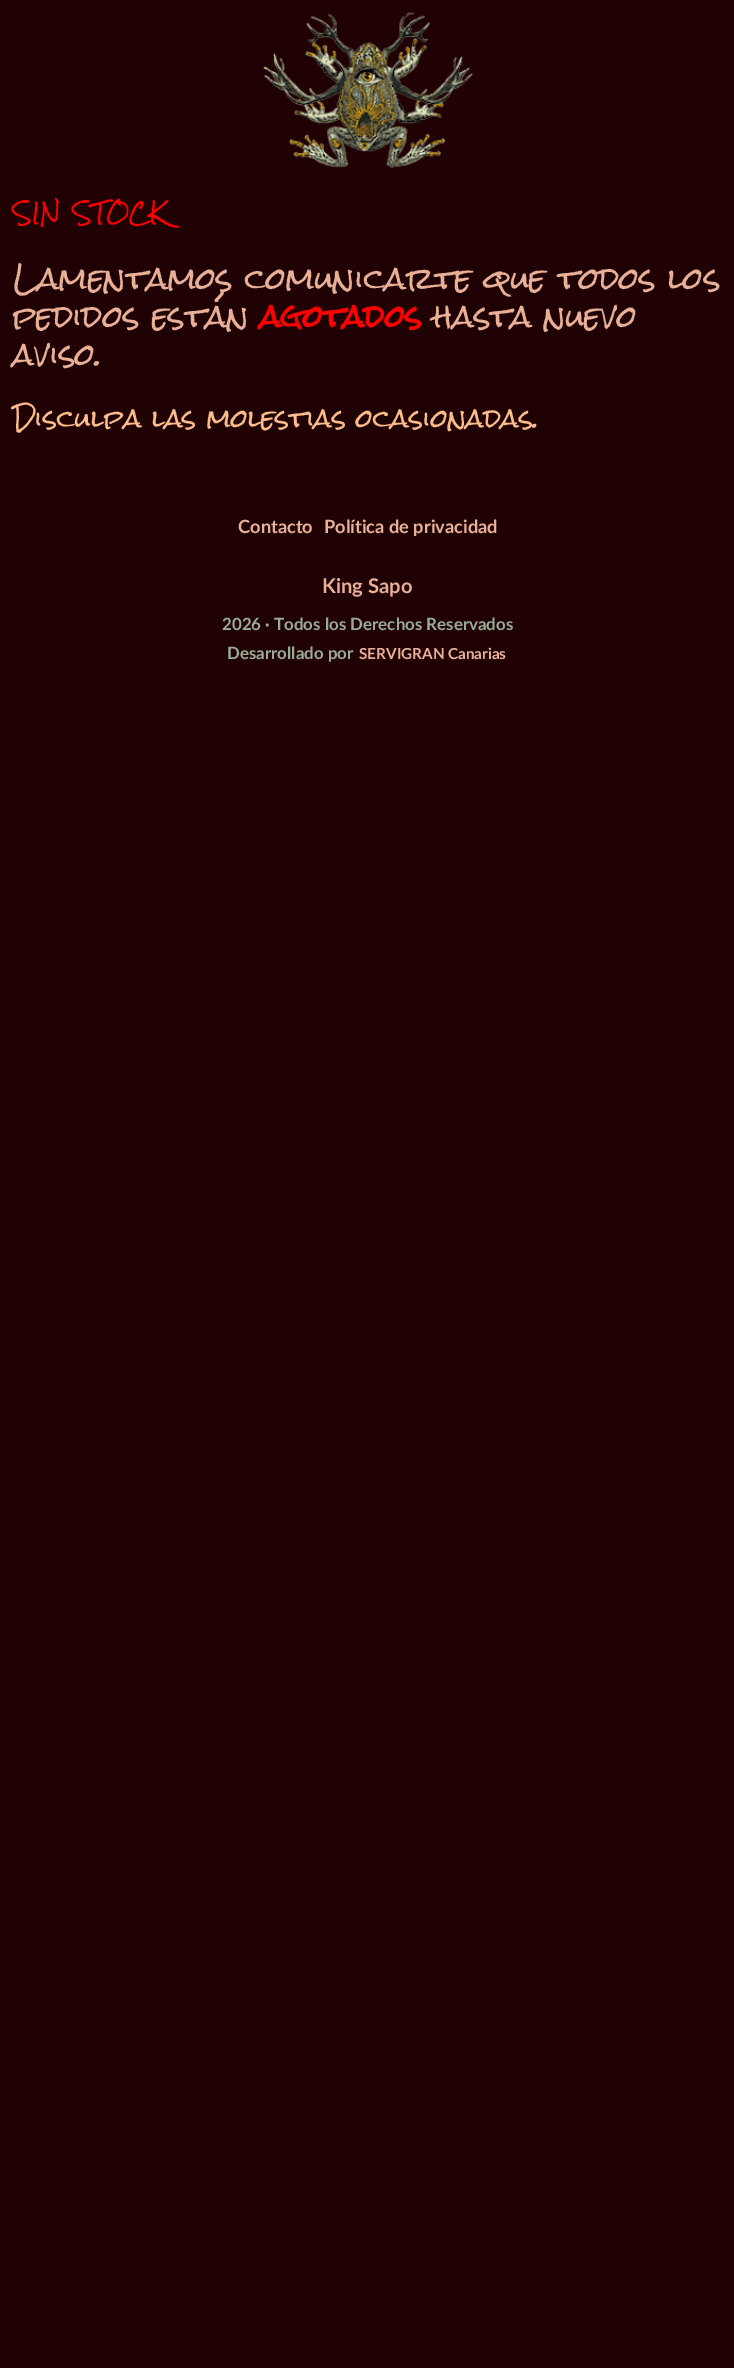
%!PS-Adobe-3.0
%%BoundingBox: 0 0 734 2368
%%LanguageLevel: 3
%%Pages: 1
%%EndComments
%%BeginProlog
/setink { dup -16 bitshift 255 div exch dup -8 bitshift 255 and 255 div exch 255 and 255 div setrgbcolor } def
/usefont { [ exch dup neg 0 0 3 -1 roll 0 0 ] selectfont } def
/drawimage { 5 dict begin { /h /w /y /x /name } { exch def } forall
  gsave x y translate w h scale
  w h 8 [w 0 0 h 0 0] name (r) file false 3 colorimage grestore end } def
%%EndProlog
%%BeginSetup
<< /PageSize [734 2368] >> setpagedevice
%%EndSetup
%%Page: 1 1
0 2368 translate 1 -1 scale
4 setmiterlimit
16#200204 setink
0 0 734 2368 rectfill
(img1.raw) 263 12 210 158 drawimage
/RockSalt-Regular 22 usefont
16#FF0000 setink
13 222 moveto (SIN) show
73 222 moveto (STOCK) show
/RockSalt-Regular 29.25 usefont
16#E8B096 setink
13 290 moveto (Lamentamos comunicarte que todos los) show
13 328 moveto (pedidos están) show
/RockSalt-Bold 29.25 usefont
16#FF0000 setink
260 328 moveto (agotados) show
/RockSalt-Regular 29.25 usefont
16#E8B096 setink
433 328 moveto (hasta nuevo) show
13 366 moveto (aviso.) show
/RockSalt-Regular 24.75 usefont
16#FCBD8A setink
13 428 moveto (Disculpa las molestias ocasionadas.) show
/Lato-Bold 18.25 usefont
16#E8B096 setink
238 533 moveto (Contacto) show
324 533 moveto (Política de privacidad) show
/Lato-Bold 20.25 usefont
322 593 moveto (King Sapo) show
/Lato-Bold 16.9 usefont
16#9AAB94 setink
222 630 moveto (2026 · Todos los Derechos Reservados) show
227 659 moveto (Desarrollado por) show
/Lato-Bold 15.25 usefont
16#E8B096 setink
359 659 moveto (SERVIGRAN Canarias) show
showpage
%%EOF
